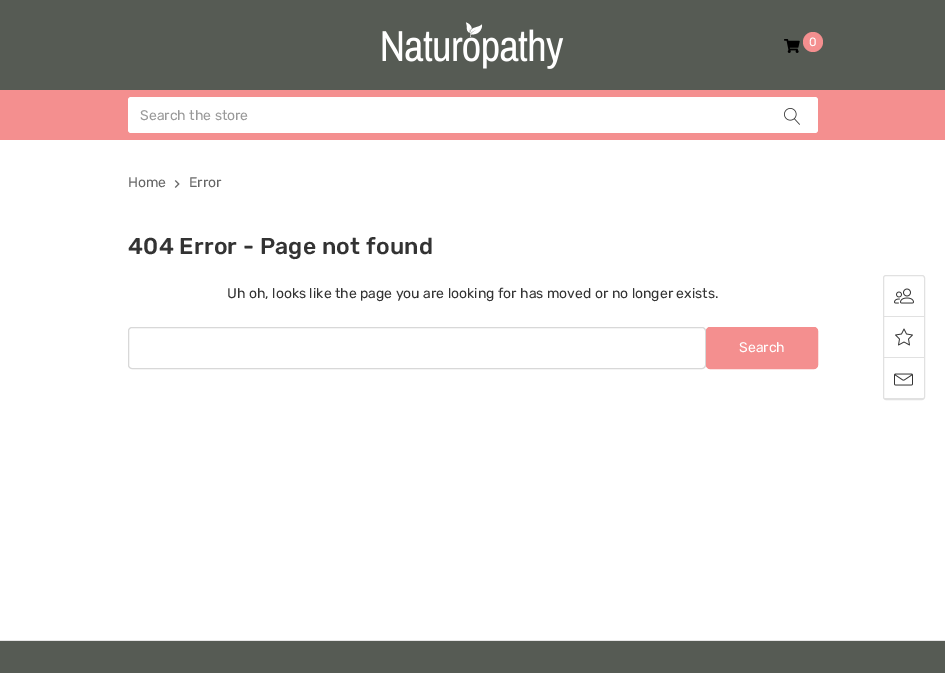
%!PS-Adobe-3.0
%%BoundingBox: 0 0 945 673
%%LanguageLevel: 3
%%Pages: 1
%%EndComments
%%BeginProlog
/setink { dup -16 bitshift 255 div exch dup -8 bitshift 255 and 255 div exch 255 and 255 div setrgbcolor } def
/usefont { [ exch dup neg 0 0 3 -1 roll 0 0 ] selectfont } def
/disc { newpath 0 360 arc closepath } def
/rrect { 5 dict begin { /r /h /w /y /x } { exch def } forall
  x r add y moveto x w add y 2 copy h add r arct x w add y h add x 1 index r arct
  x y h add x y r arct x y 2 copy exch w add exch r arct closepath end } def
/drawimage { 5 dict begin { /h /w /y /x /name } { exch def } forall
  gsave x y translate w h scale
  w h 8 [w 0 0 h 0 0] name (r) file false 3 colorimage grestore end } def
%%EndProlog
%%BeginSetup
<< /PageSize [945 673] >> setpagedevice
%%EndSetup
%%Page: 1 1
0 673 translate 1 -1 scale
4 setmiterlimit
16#FFFFFF setink
0 0 945 673 rectfill
16#565B54 setink
0 0 945 90 rectfill
(img1.raw) 382 22 182 47 drawimage
(img2.raw) 784 39 16 14 drawimage
16#F48F8F setink
813 42 10 disc fill
/Rubik-Regular 12 usefont
16#FFFFFF setink
809 46 moveto (0) show
16#F48F8F setink
0 90 945 50 rectfill
16#FFFFFF setink
128 97 690 36 3 rrect fill
/Rubik-Regular 14 usefont
16#999999 setink
140 120 moveto (Search the store) show
(img3.raw) 784 108 16 17 drawimage
16#666666 setink
128 187 moveto (Home) show
(img4.raw) 174 180 6 8 drawimage
189 187 moveto (Error) show
/Rubik-Medium 23 usefont
16#333333 setink
128 254 moveto 0.25 0 (404 Error - Page not found) ashow
/Rubik-Regular 14 usefont
227 298 moveto (Uh oh, looks like the page you are looking for has moved or no longer exists.) show
16#D8D8D8 setink
128.5 327.5 577 41 3.5 rrect stroke
16#F48F8F setink
706.5 327.5 111 41 3.5 rrect gsave fill grestore
stroke
16#FFFFFF setink
739 352 moveto (Search) show
16#E1E1E1 setink
883.5 275.5 41 124 2.5 rrect stroke
884 316 40 1 rectfill
(img5.raw) 894 288 20 16 drawimage
884 357 40 1 rectfill
(img6.raw) 895 328 18 18 drawimage
gsave
884 276 40 123 2 rrect clip newpath
884 398 40 1 rectfill
grestore
(img7.raw) 894 373 19 13 drawimage
16#565B54 setink
0 641 945 32 rectfill
16#E5E5E5 setink
0 640 945 1 rectfill
showpage
%%EOF
